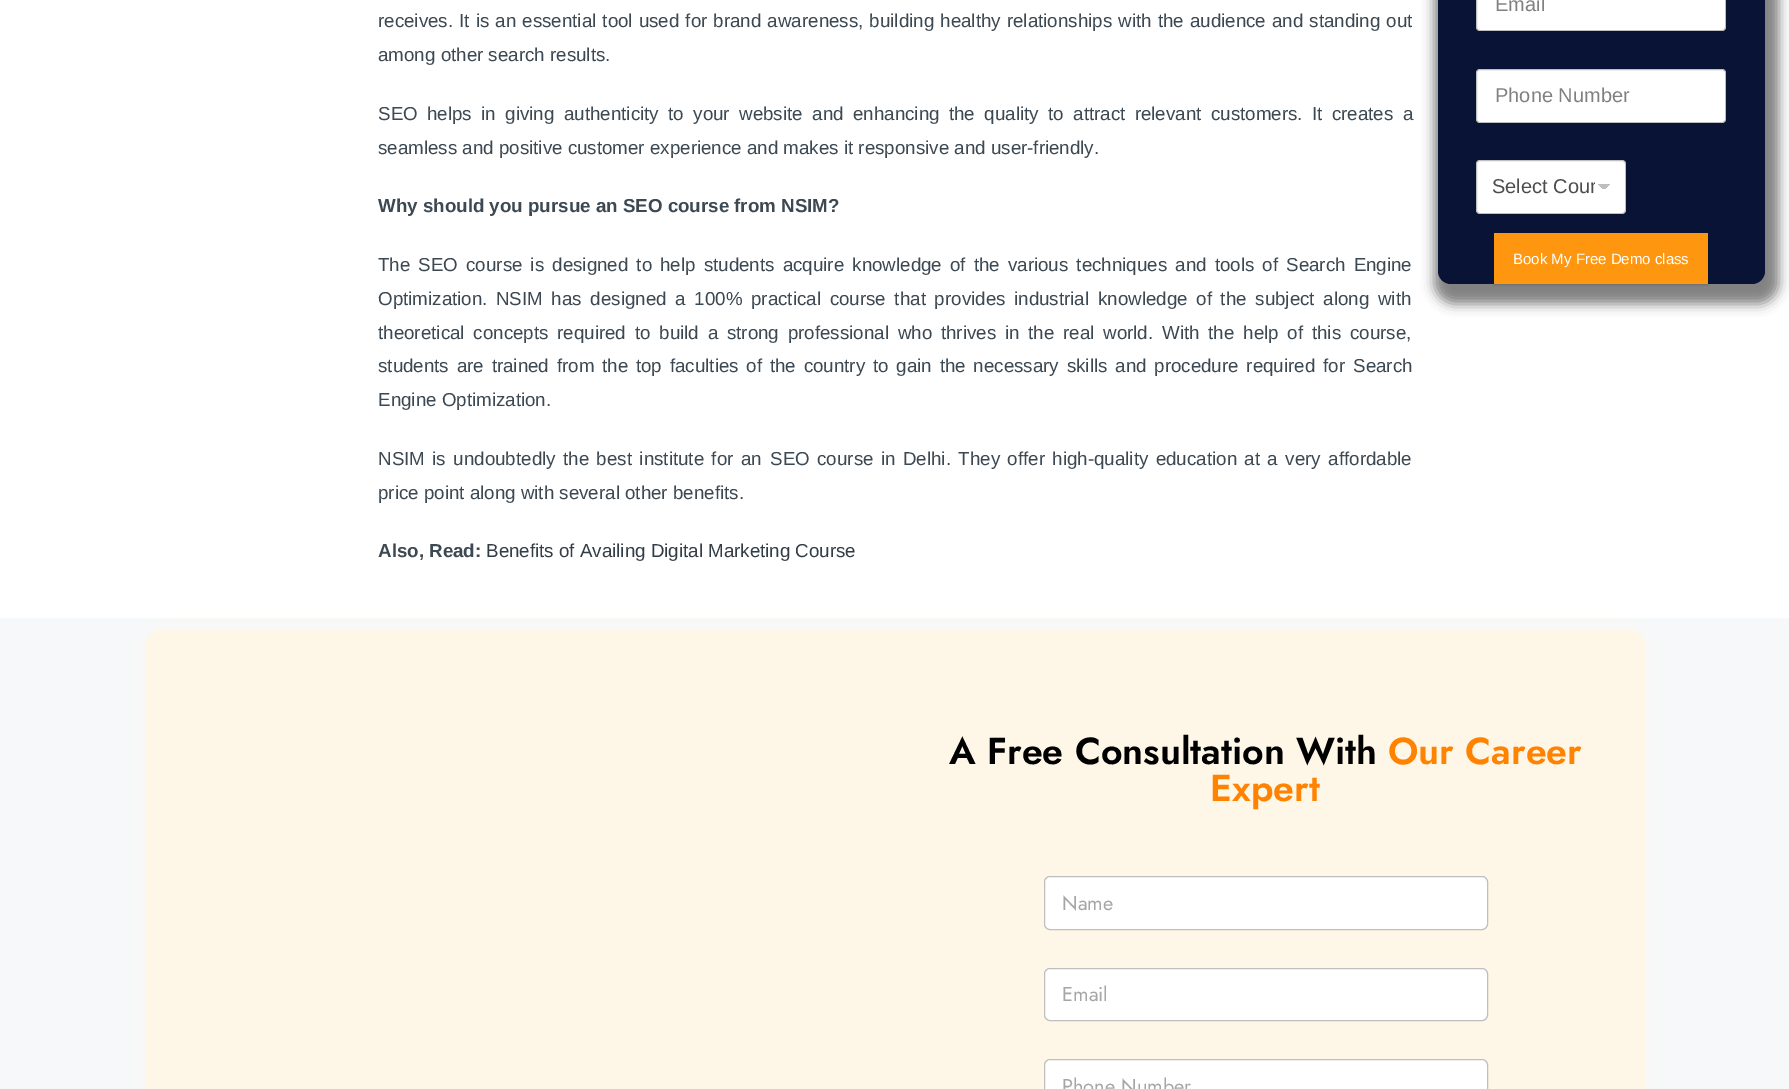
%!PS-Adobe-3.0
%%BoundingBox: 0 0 1789 1089
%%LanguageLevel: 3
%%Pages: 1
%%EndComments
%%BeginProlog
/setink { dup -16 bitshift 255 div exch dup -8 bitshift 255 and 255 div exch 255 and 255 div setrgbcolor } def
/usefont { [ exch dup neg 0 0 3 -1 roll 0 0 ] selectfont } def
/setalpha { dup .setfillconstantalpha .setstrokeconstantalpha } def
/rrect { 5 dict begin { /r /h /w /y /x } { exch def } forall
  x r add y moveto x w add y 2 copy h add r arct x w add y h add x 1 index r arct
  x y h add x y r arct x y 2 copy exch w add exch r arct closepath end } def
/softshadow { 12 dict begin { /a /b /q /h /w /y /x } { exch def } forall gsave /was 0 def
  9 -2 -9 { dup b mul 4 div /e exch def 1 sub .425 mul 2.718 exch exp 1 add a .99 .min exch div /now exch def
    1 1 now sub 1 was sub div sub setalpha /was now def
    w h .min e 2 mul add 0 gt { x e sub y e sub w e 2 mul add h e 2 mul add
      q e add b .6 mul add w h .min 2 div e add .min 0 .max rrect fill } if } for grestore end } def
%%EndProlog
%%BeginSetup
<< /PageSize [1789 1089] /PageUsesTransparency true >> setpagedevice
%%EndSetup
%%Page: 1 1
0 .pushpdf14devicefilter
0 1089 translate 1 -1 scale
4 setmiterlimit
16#F7F8F9 setink
0 0 1789 1089 rectfill
16#FFFFFF setink
0 0 1789 618 rectfill
/LiberationSans-Regular 18.75 usefont
16#3C4852 setink
378 27 moveto 0.9 0 32 (receives. It is an essential tool used for brand awareness, building healthy relationships with the audience and standing out) widthshow
378 61 moveto (among other search results.) show
378 120 moveto 4.25 0 32 (SEO helps in giving authenticity to your website and enhancing the quality to attract relevant customers. It creates a) widthshow
378 154 moveto (seamless and positive customer experience and makes it responsive and user-friendly.) show
/LiberationSans-Bold 18.75 usefont
378 212 moveto (Why should you pursue an SEO course from NSIM?) show
/LiberationSans-Regular 18.75 usefont
378 271 moveto 2.9 0 32 (The SEO course is designed to help students acquire knowledge of the various techniques and tools of) widthshow
1286 271 moveto 2.9 0 32 (Search Engine) widthshow
378 305 moveto (Optimization) show
482 305 moveto 3.5 0 32 (. NSIM has designed a 100% practical course that provides industrial knowledge of the subject along with) widthshow
378 339 moveto 3.6 0 32 (theoretical concepts required to build a strong professional who thrives in the real world. With the help of this course,) widthshow
378 372 moveto 2.6 0 32 (students are trained from the top faculties of the country to gain the necessary skills and procedure required for) widthshow
1353 372 moveto (Search) show
378 406 moveto (Engine Optimization.) show
378 465 moveto 2.25 0 32 (NSIM is undoubtedly the best institute for an) widthshow
770 465 moveto 2.25 0 32 (SEO course in Delhi. They offer high-quality education at a very affordable) widthshow
378 499 moveto (price point along with several other benefits.) show
/LiberationSans-Bold 18.75 usefont
378 557 moveto (Also, Read:) show
/LiberationSans-Regular 18.75 usefont
16#333D46 setink
486 557 moveto (Benefits of Availing Digital Marketing Course) show
16#000000 setink
1434 -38 345 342 20 6 0.5 softshadow
16#091335 setink
1438 -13 327 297 13 rrect fill
16#FFFFFF setink
1476 -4 250 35 4 rrect fill
0.25 setalpha
16#000000 setink
1476.5 -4.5 249 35 3.5 rrect stroke
/LiberationSans-Regular 20 usefont
1 setalpha
16#808080 setink
1495 11 moveto (Email) show
16#FFFFFF setink
1476 69 250 54 4 rrect fill
0.25 setalpha
16#000000 setink
1476.5 69.5 249 53 3.5 rrect stroke
1 setalpha
16#808080 setink
1495 102 moveto (Phone Number) show
16#FFFFFF setink
1476 160 150 54 4 rrect fill
gsave 1604 184 moveto 1610 184 lineto 1610 189 lineto 1604 189 lineto closepath clip newpath
<< /ShadingType 2 /ColorSpace /DeviceRGB /Coords [1604 184 1610 190] /Extend [true true] /Function << /FunctionType 3 /Domain [0 1] /Functions [<< /FunctionType 2 /Domain [0 1] /C0 [0.749 0.749 0.749] /C1 [0.749 0.749 0.749] /N 1 >> << /FunctionType 2 /Domain [0 1] /C0 [1 1 1] /C1 [1 1 1] /N 1 >>] /Bounds [0.5] /Encode [0 1 0 1] >> >> shfill grestore
gsave 1598 184 moveto 1604 184 lineto 1604 189 lineto 1598 189 lineto closepath clip newpath
<< /ShadingType 2 /ColorSpace /DeviceRGB /Coords [1598 190 1604 184] /Extend [true true] /Function << /FunctionType 3 /Domain [0 1] /Functions [<< /FunctionType 2 /Domain [0 1] /C0 [1 1 1] /C1 [1 1 1] /N 1 >> << /FunctionType 2 /Domain [0 1] /C0 [0.749 0.749 0.749] /C1 [0.749 0.749 0.749] /N 1 >>] /Bounds [0.5] /Encode [0 1 0 1] >> >> shfill grestore
0.25 setalpha
16#000000 setink
1476.5 160.5 149 53 3.5 rrect stroke
gsave
1493 170 102 35 rectclip
1 setalpha
16#4D4D4D setink
1492 193 moveto (Select Cour) show
grestore
1 setalpha
1494 234 214 51 0 1 0.15 softshadow
16#FF9610 setink
1494 233 214 51 rectfill
/LiberationSans-Regular 15 usefont
16#FFFFFF setink
1513 264 moveto (Book My Free Demo class) show
16#FEF7E8 setink
164 649 1462 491 0 17 1 softshadow
145 630 1500 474 15 rrect fill
/Jost-SemiBold 37.5 usefont
16#000000 setink
949 764 moveto (A Free Consultation With) show
16#FF8200 setink
1388 764 moveto (Our Career) show
1210 801 moveto (Expert) show
16#FFFFFF setink
1044 876 444 54 6 rrect fill
0.25 setalpha
16#000000 setink
1044.5 876.5 443 53 5.5 rrect stroke
/Jost-Regular 20 usefont
1 setalpha
16#A6A6A6 setink
1062 910 moveto (Name) show
16#FFFFFF setink
1044 968 444 53 6 rrect fill
0.25 setalpha
16#000000 setink
1044.5 968.5 443 52 5.5 rrect stroke
1 setalpha
16#A6A6A6 setink
1062 1001 moveto (Email) show
16#FFFFFF setink
1044 1059 444 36 6 rrect fill
0.25 setalpha
16#000000 setink
1044.5 1059.5 443 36 5.5 rrect stroke
1 setalpha
16#A6A6A6 setink
1062 1093 moveto (Phone Number) show
.poppdf14devicefilter showpage
%%EOF
